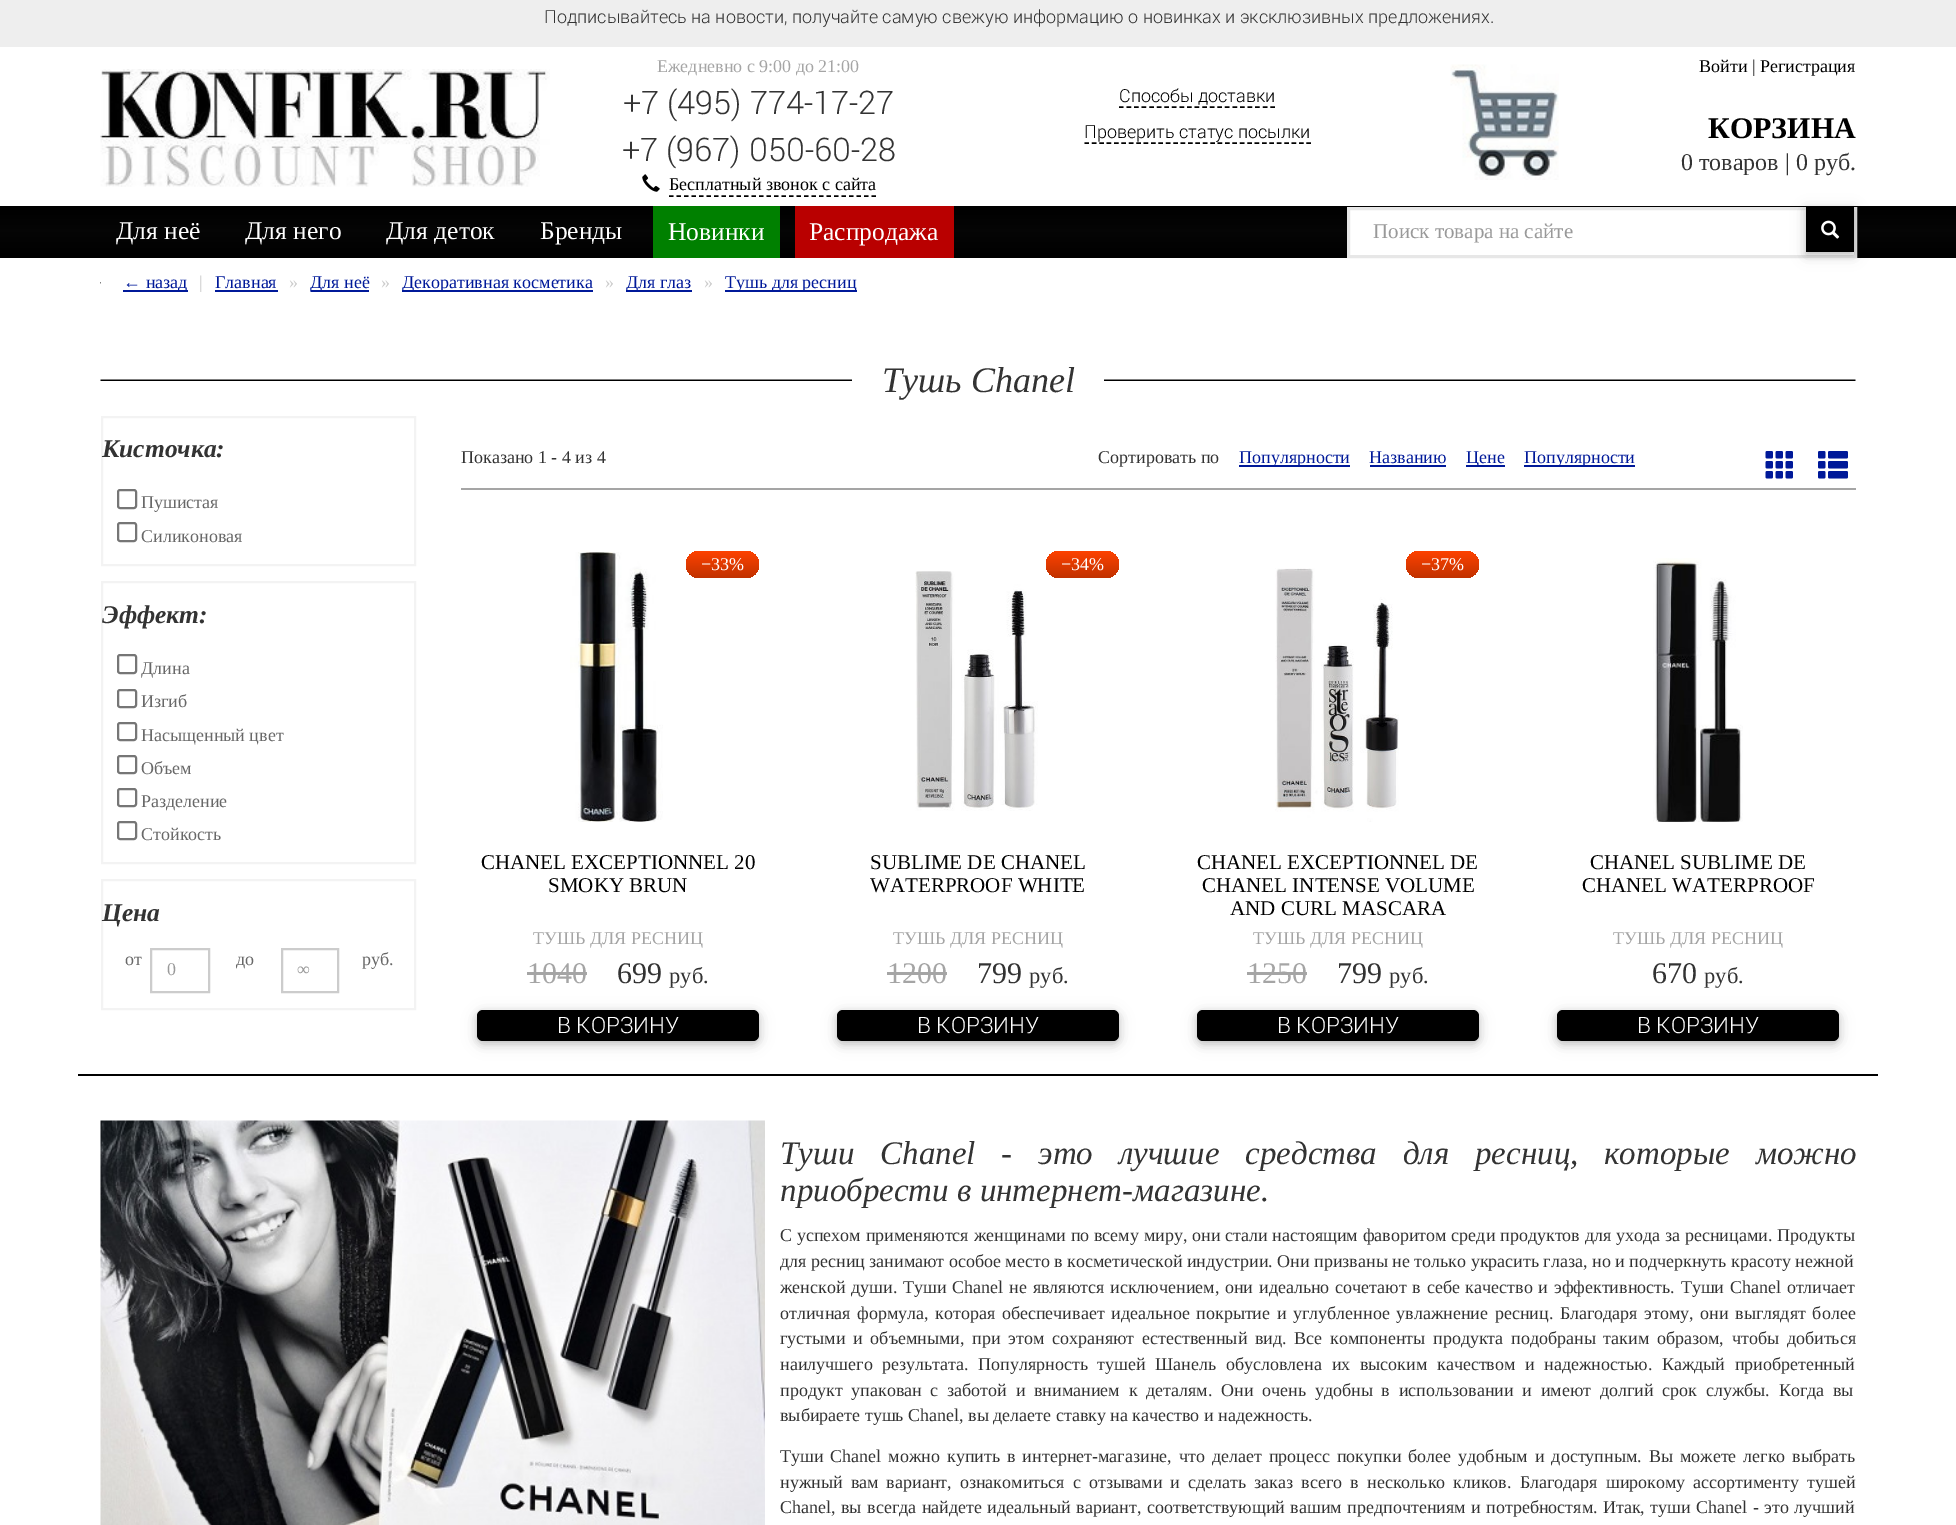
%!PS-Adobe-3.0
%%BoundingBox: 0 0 1956 1525
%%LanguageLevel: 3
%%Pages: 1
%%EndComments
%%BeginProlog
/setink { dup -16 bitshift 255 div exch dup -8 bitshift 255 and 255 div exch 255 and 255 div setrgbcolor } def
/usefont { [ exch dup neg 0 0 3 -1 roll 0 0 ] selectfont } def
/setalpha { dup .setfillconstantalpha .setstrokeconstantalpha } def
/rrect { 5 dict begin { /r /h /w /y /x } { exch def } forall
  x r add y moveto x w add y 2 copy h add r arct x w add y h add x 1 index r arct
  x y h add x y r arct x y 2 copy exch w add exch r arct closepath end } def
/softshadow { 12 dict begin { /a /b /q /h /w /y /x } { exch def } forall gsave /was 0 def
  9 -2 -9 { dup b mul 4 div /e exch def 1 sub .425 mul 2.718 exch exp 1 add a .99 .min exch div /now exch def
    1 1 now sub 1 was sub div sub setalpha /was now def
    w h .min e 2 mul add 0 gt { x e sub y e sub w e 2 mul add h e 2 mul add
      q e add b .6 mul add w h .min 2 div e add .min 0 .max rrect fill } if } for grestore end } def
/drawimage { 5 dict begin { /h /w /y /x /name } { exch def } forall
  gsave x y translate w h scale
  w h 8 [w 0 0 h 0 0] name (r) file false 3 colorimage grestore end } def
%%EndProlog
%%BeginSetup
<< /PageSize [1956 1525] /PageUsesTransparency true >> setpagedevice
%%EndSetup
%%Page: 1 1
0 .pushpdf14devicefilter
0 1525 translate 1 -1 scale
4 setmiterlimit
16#FFFFFF setink
0 0 1956 1525 rectfill
16#EEEEEE setink
0 0 1956 47 rectfill
/Roboto-Light 18 usefont
16#333333 setink
544 23 moveto (Подписывайтесь на новости, получайте самую свежую информацию о новинках и эксклюзивных предложениях.) show
(img1.raw) 100 69 450 118 drawimage
/LiberationSerif-Regular 18 usefont
16#A5A5A5 setink
657 72 moveto (Ежедневно c 9:00 до 21:00) show
/Roboto-Light 32.5 usefont
16#333333 setink
623 114 moveto (+7 \(495\) 774-17-27) show
622 161 moveto (+7 \(967\) 050-60-28) show
(img2.raw) 642 174 18 18 drawimage
/LiberationSerif-Regular 18 usefont
16#000000 setink
669 190 moveto (Бесплатный звонок с сайта) show
1.5 setlinewidth
[4.5 3] 0 setdash
669 196 moveto 876 196 lineto stroke
/Roboto-Light 18 usefont
1119 102 moveto (Способы доставки) show
[4.5 3.07] 0 setdash
1119 107 moveto 1275 107 lineto stroke
1084 138 moveto (Проверить статус посылки) show
[4.5 2.9] 0 setdash
1084.5 143 moveto 1311 143 lineto stroke
(img3.raw) 1450 64 109 116 drawimage
/LiberationSerif-Regular 18 usefont
1699 72 moveto (Войти) show
16#333333 setink
1752 72 moveto (|) show
16#000000 setink
1760 72 moveto (Регистрация) show
/LiberationSerif-Bold 30 usefont
1708 138 moveto (КОРЗИНА) show
/LiberationSerif-Regular 24 usefont
16#333333 setink
1681 170 moveto (0 товаров | 0 руб.) show
gsave 0 206 moveto 1956 206 lineto 1956 258 lineto 0 258 lineto closepath clip newpath
<< /ShadingType 2 /ColorSpace /DeviceRGB /Coords [978 205 978 258] /Extend [true true] /Function << /FunctionType 3 /Domain [0 1] /Functions [<< /FunctionType 2 /Domain [0 1] /C0 [0 0 0] /C1 [0.02 0.02 0.02] /N 1 >> << /FunctionType 2 /Domain [0 1] /C0 [0.02 0.02 0.02] /C1 [0 0 0] /N 1 >>] /Bounds [0.5] /Encode [0 1 0 1] >> >> shfill grestore
/LiberationSerif-Regular 25.5 usefont
16#FFFFFF setink
[
    [(Для неё) 116 239]
    [(Для него) 245 239]
    [(Для деток) 386 239]
    [(Бренды) 540 239]
] { aload pop moveto show } forall
16#008000 setink
653 206 127 52 rectfill
16#FFFFFF setink
668 240 moveto (Новинки) show
16#B90000 setink
795 206 159 52 rectfill
16#FFFFFF setink
809 240 moveto (Распродажа) show
1348.5 208.5 moveto 1855.5 208.5 lineto 1855.5 256.5 lineto 1348.5 256.5 lineto closepath gsave fill grestore
16#E7E7E7 setink
3 setlinewidth
[] 0 setdash
stroke
/LiberationSerif-Regular 21 usefont
16#999999 setink
1373 238 moveto (Поиск товара на сайте) show
16#000000 setink
1806 210 48 45 0 7.5 0.12 softshadow
1806 210 48 45 0 4 0.16 softshadow
1806 207 48 45 rectfill
(img4.raw) 1821 220 19 19 drawimage
(img5.raw) 100 282 1 2 drawimage
16#001999 setink
123 290 65 2 rectfill
/LiberationSerif-Regular 18 usefont
123 288 moveto (← назад) show
16#CCCCCC setink
199 288 moveto (|) show
16#001999 setink
215 288 moveto (Главная) show
215 290 63 2 rectfill
16#CCCCCC setink
289 288 moveto (») show
16#001999 setink
311 290 58 2 rectfill
310 288 moveto (Для неё) show
16#CCCCCC setink
381 288 moveto (») show
16#001999 setink
402 290 191 2 rectfill
402 288 moveto (Декоративная косметика) show
16#CCCCCC setink
605 288 moveto (») show
16#001999 setink
626 290 66 2 rectfill
626 288 moveto (Для глаз) show
16#CCCCCC setink
704 288 moveto (») show
16#001999 setink
725 290 132 2 rectfill
725 288 moveto (Тушь для ресниц) show
(img6.raw) 100 379 1756 2 drawimage
16#FFFFFF setink
852 379 252 2 rectfill
/LiberationSerif-Italic 36 usefont
16#333333 setink
882 392 moveto (Тушь Chanel) show
16#F3F3F3 setink
2 setlinewidth
102 417 313 148 rectstroke
/LiberationSerif-BoldItalic 25.5 usefont
16#333333 setink
102 457 moveto (Кисточка:) show
16#767676 setink
118 490 18 18 2 rrect stroke
/LiberationSerif-Regular 18 usefont
16#686868 setink
141 508 moveto (Пушистая) show
16#767676 setink
118 523 18 18 2 rrect stroke
16#686868 setink
141 542 moveto (Силиконовая) show
16#F3F3F3 setink
102 582 313 281 rectstroke
/LiberationSerif-BoldItalic 25.5 usefont
16#333333 setink
102 623 moveto (Эффект:) show
16#767676 setink
118 655 18 18 2 rrect stroke
/LiberationSerif-Regular 18 usefont
16#686868 setink
141 674 moveto (Длина) show
16#767676 setink
118 690 18 17 2 rrect stroke
16#686868 setink
141 707 moveto (Изгиб) show
16#767676 setink
118 723 18 17 2 rrect stroke
16#686868 setink
141 741 moveto (Насыщенный цвет) show
16#767676 setink
118 756 18 17 2 rrect stroke
16#686868 setink
141 774 moveto (Объем) show
16#767676 setink
118 789 18 17 2 rrect stroke
16#686868 setink
141 807 moveto (Разделение) show
16#767676 setink
118 822 18 17 2 rrect stroke
16#686868 setink
141 840 moveto (Стойкость) show
16#F3F3F3 setink
102 880 313 129 rectstroke
/LiberationSerif-BoldItalic 25.5 usefont
16#333333 setink
102 921 moveto (Цена) show
/LiberationSerif-Regular 18 usefont
16#686868 setink
125 965 moveto (от) show
16#CCCCCC setink
151 949 58 43 rectstroke
16#999999 setink
167 975 moveto (0) show
16#686868 setink
236 965 moveto (до) show
16#CCCCCC setink
282 949 56 43 rectstroke
16#999999 setink
297 975 moveto (∞) show
16#686868 setink
362 965 moveto (руб.) show
16#333333 setink
461 463 moveto (Показано 1 - 4 из 4) show
1098 463 moveto (Сортировать по) show
16#001999 setink
1239 465 111 2 rectfill
1239 463 moveto (Популярности) show
1369 463 moveto (Названию) show
1370 465 76 2 rectfill
1466 465 39 2 rectfill
1466 463 moveto (Цене) show
1524 465 111 2 rectfill
1524 463 moveto (Популярности) show
(img7.raw) 1765 451 28 28 drawimage
(img8.raw) 1818 451 30 28 drawimage
16#A5A5A5 setink
461 488 1395 2 rectfill
(img9.raw) 570 552 93 270 drawimage
gsave 686 551 73 27 13.5 rrect clip newpath
<< /ShadingType 2 /ColorSpace /DeviceRGB /Coords [722 551 722 578] /Extend [true true] /Function << /FunctionType 2 /Domain [0 1] /C0 [0.996 0.259 0] /C1 [0.757 0.196 0] /N 1 >> >> shfill grestore
16#FFFFFF setink
701 570 moveto (−33%) show
/LiberationSerif-Regular 21 usefont
16#000000 setink
481 869 moveto (CHANEL EXCEPTIONNEL 20) show
548 892 moveto (SMOKY BRUN) show
/LiberationSerif-Regular 18 usefont
16#A5A5A5 setink
533 944 moveto (ТУШЬ ДЛЯ РЕСНИЦ) show
/LiberationSerif-Regular 30 usefont
527 983 moveto (1040) show
527 972 60 3 rectfill
16#333333 setink
617 983 moveto (699) show
/LiberationSerif-Regular 22.5 usefont
669 983 moveto (руб.) show
16#000000 setink
477 1013 282 31 6 7.5 0.12 softshadow
477 1013 282 31 6 4 0.16 softshadow
477 1010 282 31 6 rrect fill
/Roboto-Light 22.5 usefont
16#FFFFFF setink
557 1033 moveto (В КОРЗИНУ) show
gsave 1046 551 73 27 13.5 rrect clip newpath
<< /ShadingType 2 /ColorSpace /DeviceRGB /Coords [1082 551 1082 578] /Extend [true true] /Function << /FunctionType 2 /Domain [0 1] /C0 [0.996 0.259 0] /C1 [0.757 0.196 0] /N 1 >> >> shfill grestore
/LiberationSerif-Regular 18 usefont
1061 570 moveto (−34%) show
(img10.raw) 915 571 123 240 drawimage
/LiberationSerif-Regular 21 usefont
16#000000 setink
870 869 moveto (SUBLIME DE CHANEL) show
870 892 moveto (WATERPROOF WHITE) show
/LiberationSerif-Regular 18 usefont
16#A5A5A5 setink
893 944 moveto (ТУШЬ ДЛЯ РЕСНИЦ) show
/LiberationSerif-Regular 30 usefont
887 983 moveto (1200) show
887 972 60 3 rectfill
16#333333 setink
977 983 moveto (799) show
/LiberationSerif-Regular 22.5 usefont
1029 983 moveto (руб.) show
16#000000 setink
837 1013 282 31 6 7.5 0.12 softshadow
837 1013 282 31 6 4 0.16 softshadow
837 1010 282 31 6 rrect fill
/Roboto-Light 22.5 usefont
16#FFFFFF setink
917 1033 moveto (В КОРЗИНУ) show
gsave 1406 551 73 27 13.5 rrect clip newpath
<< /ShadingType 2 /ColorSpace /DeviceRGB /Coords [1442 551 1442 578] /Extend [true true] /Function << /FunctionType 2 /Domain [0 1] /C0 [0.996 0.259 0] /C1 [0.757 0.196 0] /N 1 >> >> shfill grestore
/LiberationSerif-Regular 18 usefont
1421 570 moveto (−37%) show
(img11.raw) 1275 568 124 254 drawimage
/LiberationSerif-Regular 21 usefont
16#000000 setink
[
    [(CHANEL EXCEPTIONNEL DE) 1197 869]
    [(CHANEL INTENSE VOLUME) 1202 892]
    [(AND CURL MASCARA) 1230 915]
] { aload pop moveto show } forall
/LiberationSerif-Regular 18 usefont
16#A5A5A5 setink
1253 944 moveto (ТУШЬ ДЛЯ РЕСНИЦ) show
/LiberationSerif-Regular 30 usefont
1247 983 moveto (1250) show
1247 972 60 3 rectfill
16#333333 setink
1337 983 moveto (799) show
/LiberationSerif-Regular 22.5 usefont
1389 983 moveto (руб.) show
16#000000 setink
1197 1013 282 31 6 7.5 0.12 softshadow
1197 1013 282 31 6 4 0.16 softshadow
1197 1010 282 31 6 rrect fill
/Roboto-Light 22.5 usefont
16#FFFFFF setink
1277 1033 moveto (В КОРЗИНУ) show
(img12.raw) 1653 558 90 264 drawimage
/LiberationSerif-Regular 21 usefont
16#000000 setink
1590 869 moveto (CHANEL SUBLIME DE) show
1582 892 moveto (CHANEL WATERPROOF) show
/LiberationSerif-Regular 18 usefont
16#A5A5A5 setink
1613 944 moveto (ТУШЬ ДЛЯ РЕСНИЦ) show
/LiberationSerif-Regular 30 usefont
16#333333 setink
1652 983 moveto (670) show
/LiberationSerif-Regular 22.5 usefont
1704 983 moveto (руб.) show
16#000000 setink
1557 1013 282 31 6 7.5 0.12 softshadow
1557 1013 282 31 6 4 0.16 softshadow
1557 1010 282 31 6 rrect fill
/Roboto-Light 22.5 usefont
16#FFFFFF setink
1637 1033 moveto (В КОРЗИНУ) show
16#000000 setink
78 1074 1800 2 rectfill
(img13.raw) 100 1120 665 405 drawimage
/LiberationSerif-Italic 33 usefont
16#333333 setink
780 1164 moveto 17.5 0 32 (Туши Chanel - это лучшие средства для ресниц, которые можно) widthshow
780 1201 moveto (приобрести в интернет-магазине.) show
/LiberationSerif-Regular 18 usefont
780 1241 moveto 0.3 0 32 (С успехом применяются женщинами по всему миру, они стали настоящим фаворитом среди продуктов для ухода за ресницами. Продукты) widthshow
780 1267 moveto (для ресниц занимают особое место в косметической индустрии. Они призваны не только украсить глаза, но и подчеркнуть красоту нежной) show
780 1293 moveto 1.3 0 32 (женской души. Туши Chanel не являются исключением, они идеально сочетают в себе качество и эффективность. Туши Chanel отличает) widthshow
780 1319 moveto 2.1 0 32 (отличная формула, которая обеспечивает идеальное покрытие и углубленное увлажнение ресниц. Благодаря этому, они выглядят более) widthshow
780 1344 moveto 3.25 0 32 (густыми и объемными, при этом сохраняют естественный вид. Все компоненты продукта подобраны таким образом, чтобы добиться) widthshow
780 1370 moveto 5.1 0 32 (наилучшего результата. Популярность тушей Шанель обусловлена их высоким качеством и надежностью. Каждый приобретенный) widthshow
780 1396 moveto 4.25 0 32 (продукт упакован с заботой и вниманием к деталям. Они очень удобны в использовании и имеют долгий срок службы. Когда вы) widthshow
780 1421 moveto (выбираете тушь Chanel, вы делаете ставку на качество и надежность.) show
780 1462 moveto 2.5 0 32 (Туши Chanel можно купить в интернет-магазине, что делает процесс покупки более удобным и доступным. Вы можете легко выбрать) widthshow
780 1488 moveto 3.6 0 32 (нужный вам вариант, ознакомиться с отзывами и сделать заказ всего в несколько кликов. Благодаря широкому ассортименту тушей) widthshow
780 1513 moveto 1 0 32 (Chanel, вы всегда найдете идеальный вариант, соответствующий вашим предпочтениям и потребностям. Итак, туши Chanel - это лучший) widthshow
.poppdf14devicefilter showpage
%%EOF
